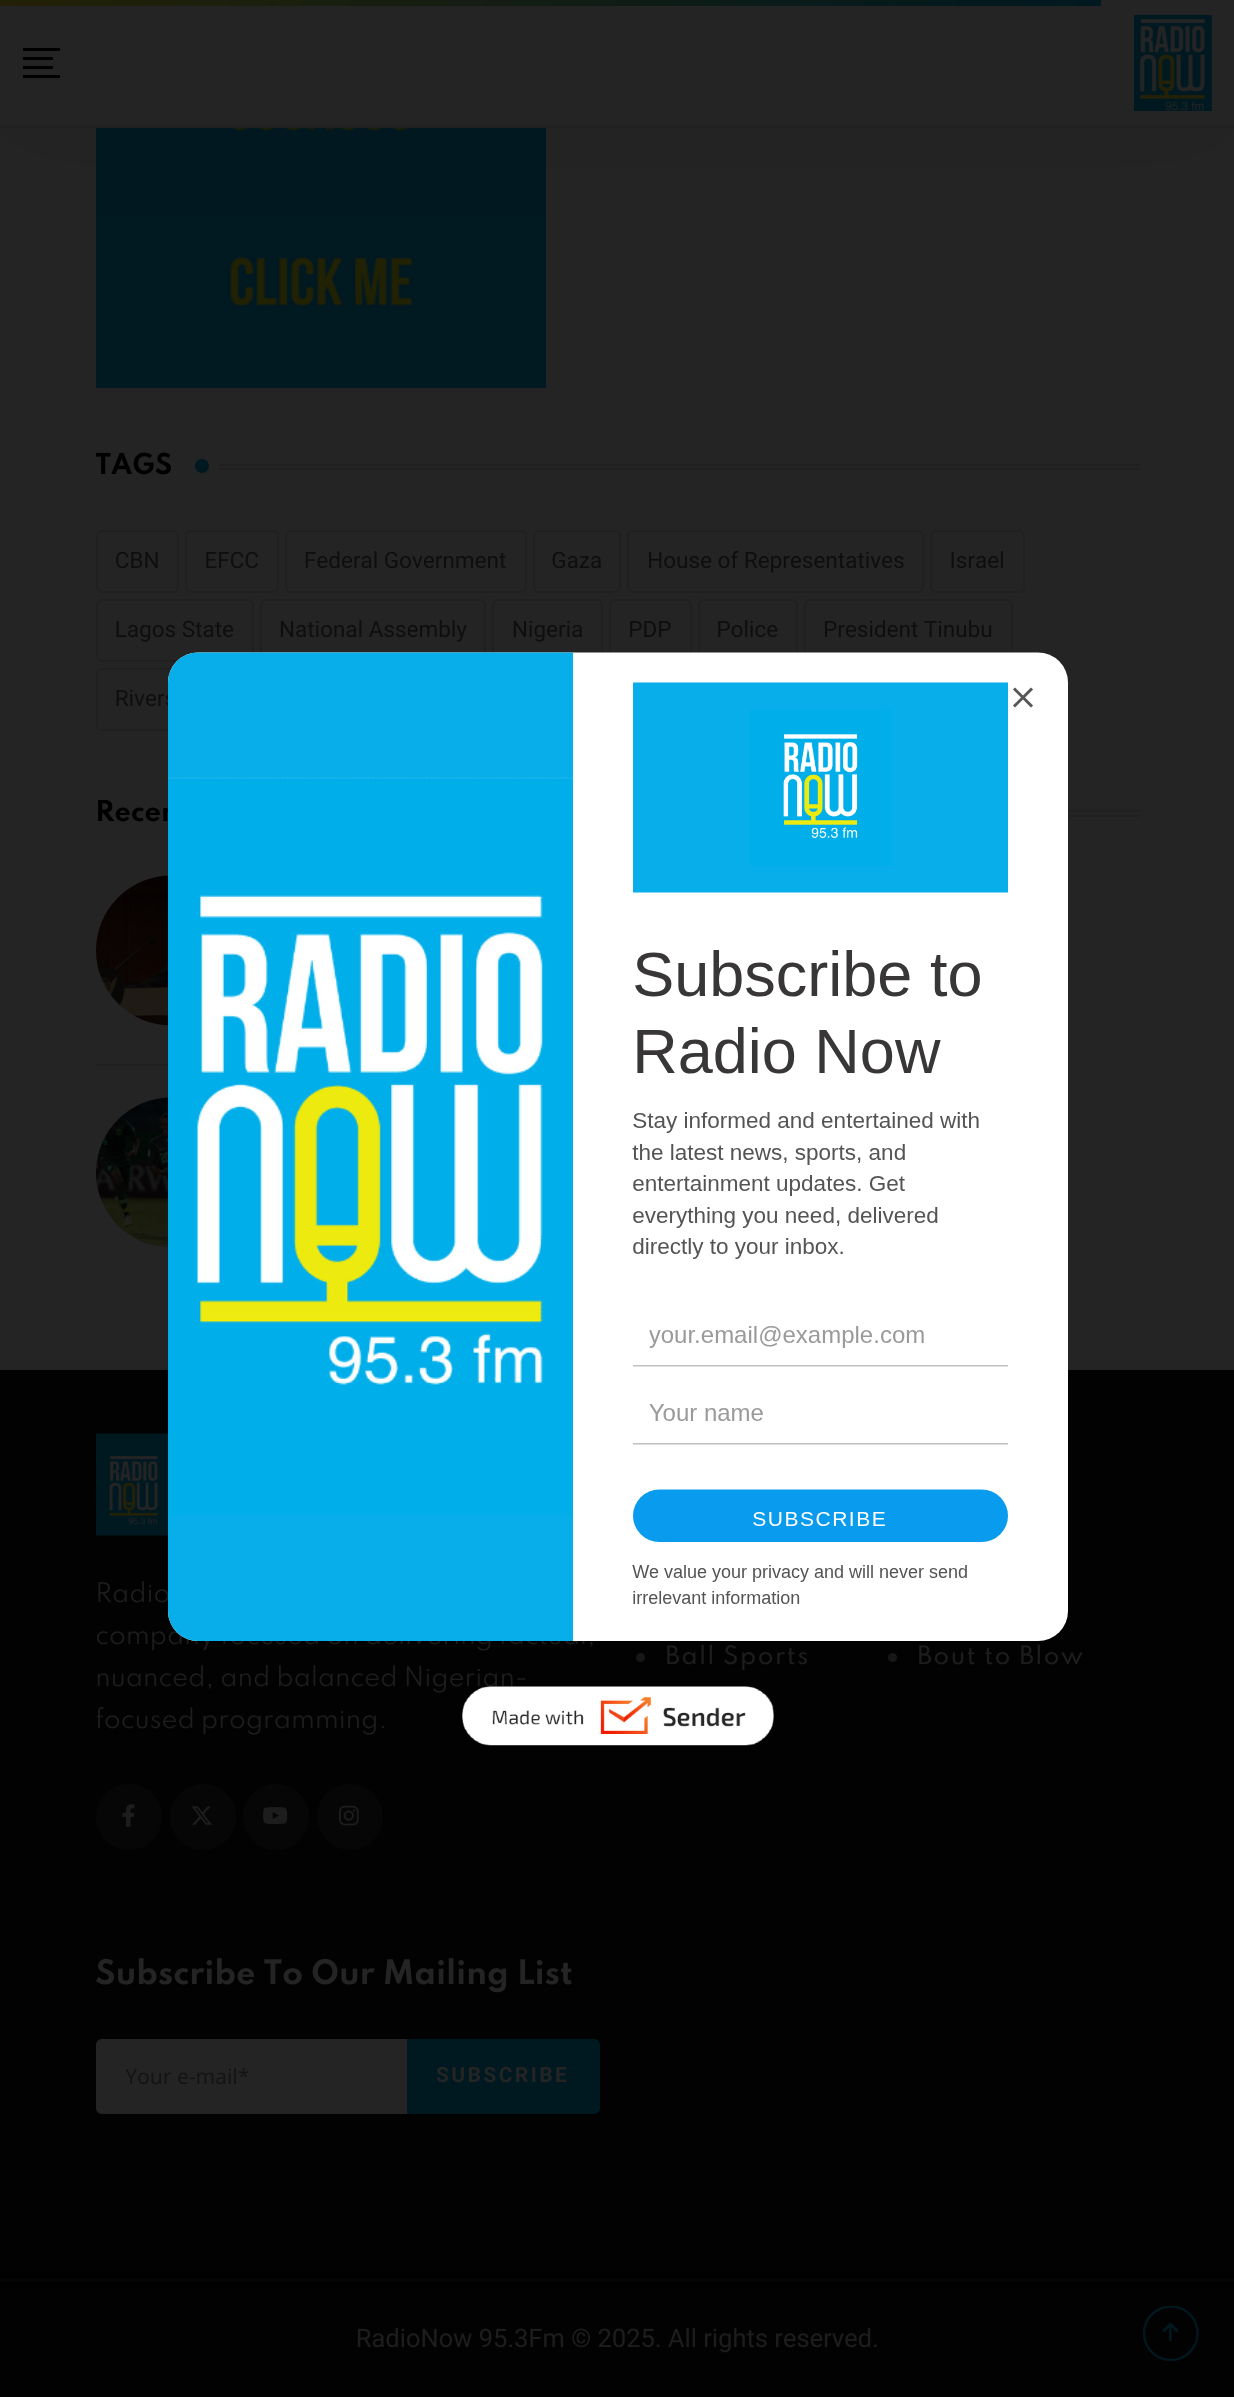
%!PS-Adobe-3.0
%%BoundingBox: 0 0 1234 2397
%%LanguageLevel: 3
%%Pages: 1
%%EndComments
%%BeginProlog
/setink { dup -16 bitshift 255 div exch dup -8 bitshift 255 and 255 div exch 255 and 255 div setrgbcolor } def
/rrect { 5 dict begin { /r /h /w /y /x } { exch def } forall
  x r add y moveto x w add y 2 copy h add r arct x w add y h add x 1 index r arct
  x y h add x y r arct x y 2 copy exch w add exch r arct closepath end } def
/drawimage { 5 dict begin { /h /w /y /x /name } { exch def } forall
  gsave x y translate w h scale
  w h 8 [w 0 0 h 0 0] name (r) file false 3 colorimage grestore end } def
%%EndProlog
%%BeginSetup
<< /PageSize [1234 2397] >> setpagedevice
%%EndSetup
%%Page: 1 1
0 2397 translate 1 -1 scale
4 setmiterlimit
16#FFFFFF setink
0 0 1234 2397 rectfill
(img2.raw) 96 0 450 388 drawimage
16#E5E5E5 setink
2 setlinewidth
97 531 81 61 5 rrect stroke
186 531 92 61 5 rrect stroke
286 531 240 61 5 rrect stroke
534 531 86 61 5 rrect stroke
628 531 295 61 5 rrect stroke
931 531 93 61 5 rrect stroke
97 600 156 61 5 rrect stroke
261 600 224 61 5 rrect stroke
493 600 109 61 5 rrect stroke
610 600 81 61 5 rrect stroke
699 600 98 61 5 rrect stroke
805 600 207 61 5 rrect stroke
97 669 156 61 5 rrect stroke
(img3.raw) 96 875 72 151 drawimage
(img4.raw) 96 1097 72 151 drawimage
(img5.raw) 1134 15 78 96 drawimage
(img6.raw) 96 1433 72 103 drawimage
(img7.raw) 122 1804 13 23 drawimage
(img8.raw) 191 1806 21 19 drawimage
(img9.raw) 263 1807 25 17 drawimage
(img10.raw) 339 1805 20 21 drawimage
16#2B2D2F setink
1144 2307 54 53 26.5 rrect stroke
gsave
1143 2306 56 55 rectclip
16#00ACE5 setink
2.2 setlinewidth
1171 2306.5 moveto 1185.5 2306.5 1197.5 2318.5 1197.5 2333 curveto 1197.5 2348 1185.5 2360 1171 2360 curveto 1156 2360 1144 2348 1144 2333 curveto 1144 2318.5 1156 2306.5 1171 2306.5 curveto stroke
grestore
(img11.raw) 1162 2322 17 20 drawimage
(img1.raw) 0 0 1234 2397 drawimage
showpage
%%EOF
